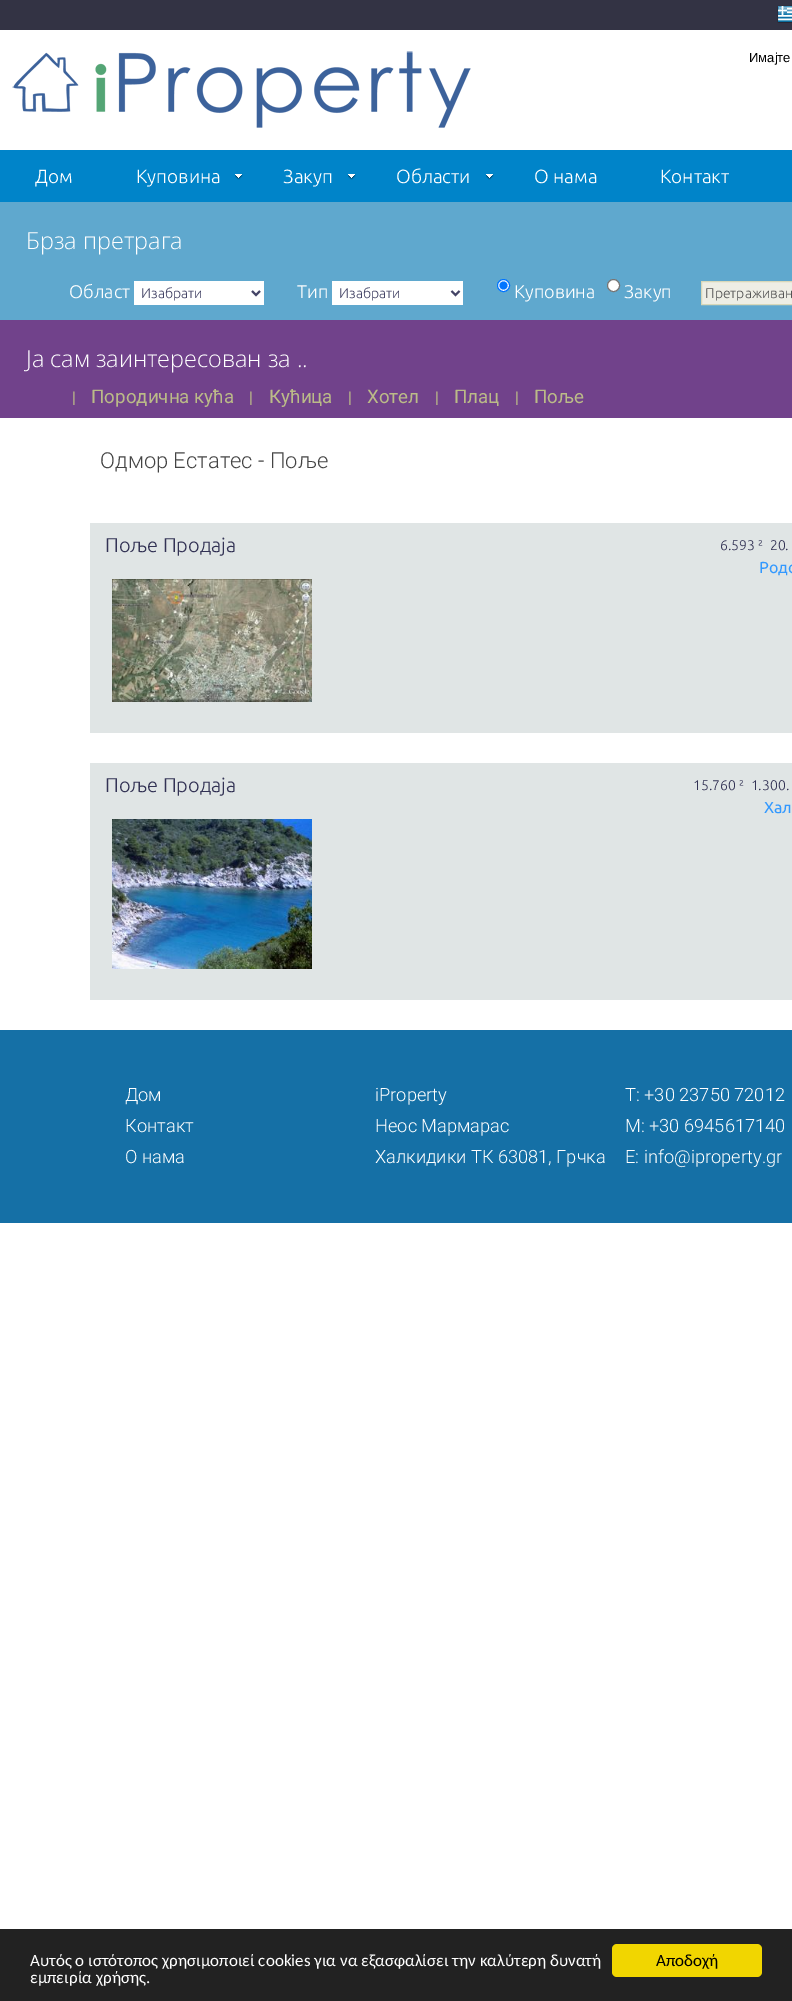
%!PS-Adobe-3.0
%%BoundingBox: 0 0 792 2001
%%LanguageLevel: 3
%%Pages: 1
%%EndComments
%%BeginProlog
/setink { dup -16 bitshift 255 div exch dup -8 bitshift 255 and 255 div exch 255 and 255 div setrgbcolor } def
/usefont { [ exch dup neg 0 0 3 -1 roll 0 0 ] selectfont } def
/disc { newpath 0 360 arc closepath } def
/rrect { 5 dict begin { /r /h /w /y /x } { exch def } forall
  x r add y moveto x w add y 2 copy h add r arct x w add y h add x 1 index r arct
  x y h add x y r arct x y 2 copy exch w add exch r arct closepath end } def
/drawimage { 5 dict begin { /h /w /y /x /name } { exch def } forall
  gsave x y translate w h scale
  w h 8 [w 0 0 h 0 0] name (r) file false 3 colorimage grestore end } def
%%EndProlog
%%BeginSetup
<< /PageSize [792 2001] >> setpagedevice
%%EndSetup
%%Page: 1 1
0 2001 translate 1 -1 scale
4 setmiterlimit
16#FFFFFF setink
0 0 792 2001 rectfill
16#333344 setink
0 0 792 30 rectfill
(img1.raw) 777 5 15 18 drawimage
(img2.raw) 12 51 459 77 drawimage
/LiberationSans-Regular 13 usefont
16#000000 setink
749 62 moveto (Имајте) show
16#0084C9 setink
0 150 792 52 rectfill
/Ubuntu-Light 19 usefont
16#FFFFFF setink
35 183 moveto (Дом) show
136 183 moveto (Куповина) show
(img3.raw) 235 174 8 6 drawimage
283 183 moveto (Закуп) show
(img3.raw) 348 174 8 6 drawimage
396 183 moveto (Области) show
(img3.raw) 486 174 8 6 drawimage
534 183 moveto (О нама) show
660 183 moveto (Контакт) show
16#5FA8CE setink
0 202 792 118 rectfill
/OpenSans-Light 23.4 usefont
16#FFFFFF setink
26 249 moveto (Брза претрага) show
/Ubuntu-Light 18.25 usefont
69 298 moveto (Област) show
134 281 130 24 rectfill
16#444466 setink
2 setlinewidth
252 291 moveto 256 295 lineto 260 291 lineto stroke
/Ubuntu-Light 14 usefont
141 298 moveto (Изабрати) show
/Ubuntu-Light 18.25 usefont
16#FFFFFF setink
297 298 moveto (Тип) show
332 281 131 24 rectfill
16#444466 setink
451.5 291 moveto 455.5 295 lineto 459.5 291 lineto stroke
/Ubuntu-Light 14 usefont
339 298 moveto (Изабрати) show
16#FFFFFF setink
503.5 285.5 6 disc gsave fill grestore
16#0075FF setink
1 setlinewidth
stroke
503.5 285.5 4 disc fill
/Ubuntu-Light 18.25 usefont
16#FFFFFF setink
514 298 moveto (Куповина) show
613.5 285.5 6 disc gsave fill grestore
16#767676 setink
stroke
16#FFFFFF setink
624 298 moveto (Закуп) show
16#EEEEE5 setink
701.5 281.5 moveto 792.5 281.5 lineto 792.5 304.5 lineto 701.5 304.5 lineto closepath gsave fill grestore
16#D8D8B9 setink
stroke
/Ubuntu-Light 14 usefont
16#555555 setink
705 298 moveto (Претраживањ) show
16#71428B setink
0 320 792 98 rectfill
/OpenSans-Light 23.4 usefont
16#FFFFFF setink
26 367 moveto (Ја сам заинтересован за ..) show
/Roboto-Regular 16 usefont
16#BBBB88 setink
72 403 moveto (|) show
/Roboto-Regular 18.75 usefont
91 403 moveto (Породична кућа) show
/Roboto-Regular 16 usefont
249 403 moveto (|) show
/Roboto-Regular 18.75 usefont
269 403 moveto (Кућица) show
/Roboto-Regular 16 usefont
348 403 moveto (|) show
/Roboto-Regular 18.75 usefont
367 403 moveto (Хотел) show
/Roboto-Regular 16 usefont
435 403 moveto (|) show
/Roboto-Regular 18.75 usefont
454 403 moveto (Плац) show
/Roboto-Regular 16 usefont
515 403 moveto (|) show
/Roboto-Regular 18.75 usefont
534 403 moveto (Поље) show
/Roboto-Light 22 usefont
16#444444 setink
100 468 moveto (Одмор Естатес - Поље) show
16#E0E5E5 setink
90 523 702 210 rectfill
/Ubuntu-Light 20 usefont
16#333355 setink
105 552 moveto (Поље Продаја) show
/Ubuntu-Light 14 usefont
720 550 moveto (6.593 ²  20.) show
/Ubuntu-Regular 16 usefont
16#3399FF setink
759 573 moveto (Родо) show
(img4.raw) 112 579 200 123 drawimage
16#E0E5E5 setink
90 763 702 237 rectfill
/Ubuntu-Light 20 usefont
16#333355 setink
105 792 moveto (Поље Продаја) show
/Ubuntu-Light 14 usefont
693 790 moveto (15.760 ²  1.300.) show
/Ubuntu-Regular 16 usefont
16#3399FF setink
764 813 moveto (Хал) show
(img5.raw) 112 819 200 150 drawimage
16#1570A6 setink
0 1030 792 193 rectfill
/Roboto-Light 18.25 usefont
16#FFFFFF setink
[
    [(Дом) 125 1101]
    [(Контакт) 125 1132]
    [(О нама) 125 1163]
    [(iProperty) 375 1101]
    [(Неос Мармарас) 375 1132]
    [(Халкидики ТК 63081, Грчка) 375 1163]
    [(T: +30 23750 72012) 625 1101]
    [(M: +30 6945617140) 625 1132]
    [(E: info@iproperty.gr) 625 1163]
] { aload pop moveto show } forall
16#222222 setink
0 1929 792 72 rectfill
/Carlito-Regular 17 usefont
16#FFFFFF setink
30 1966 moveto (Αυτός ο ιστότοπος χρησιμοποιεί cookies για να εξασφαλίσει την καλύτερη δυνατή) show
30 1983 moveto (εμπειρία χρήσης.) show
16#F1D600 setink
612 1944 150 33 5 rrect fill
16#000000 setink
656 1966 moveto (Αποδοχή) show
showpage
%%EOF
